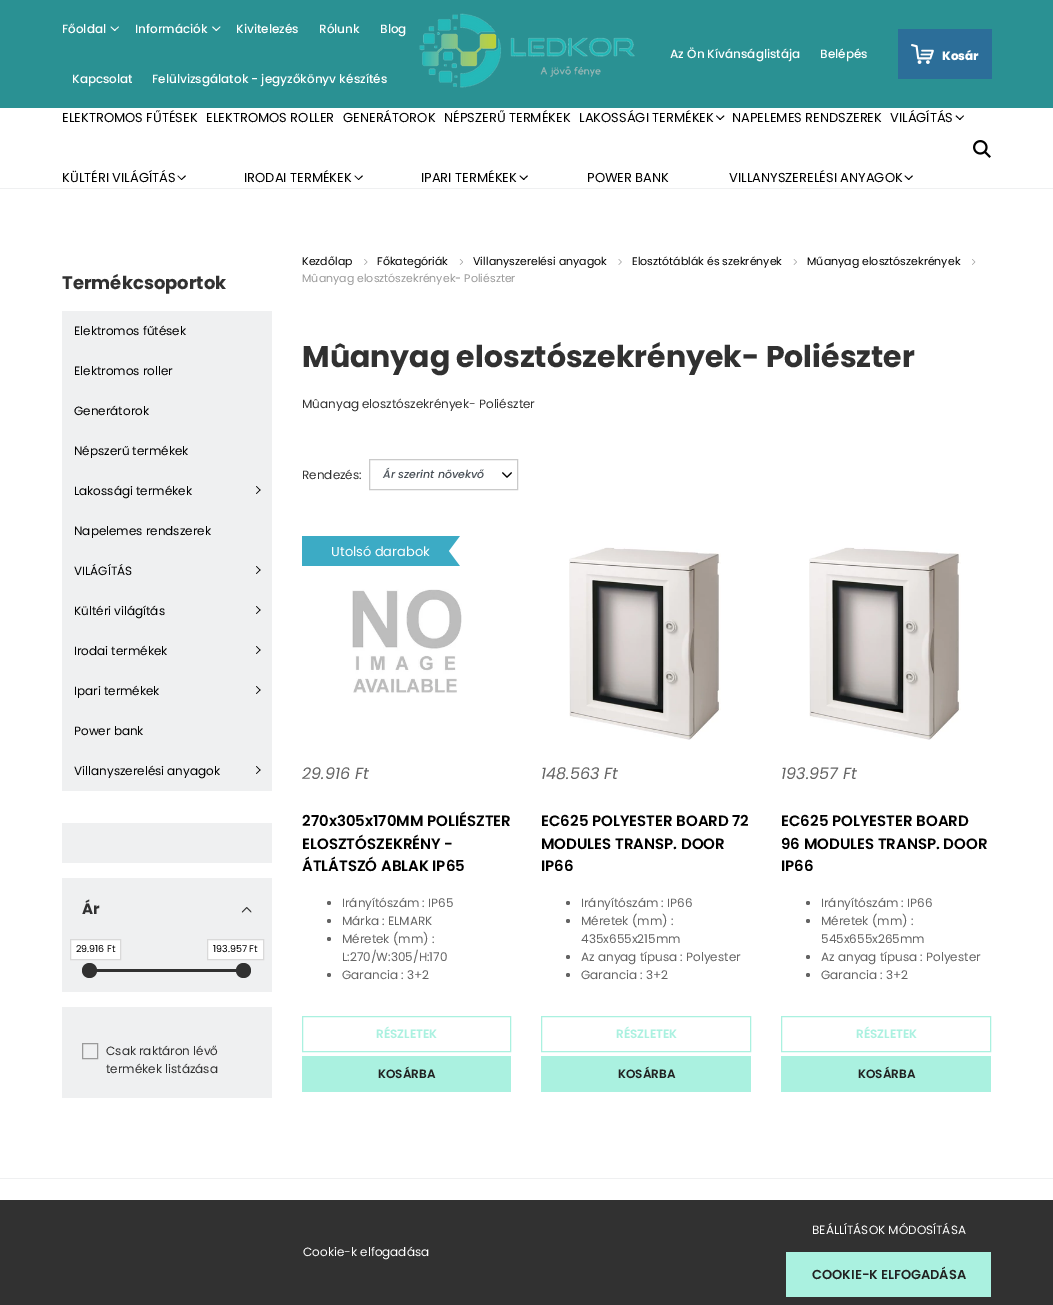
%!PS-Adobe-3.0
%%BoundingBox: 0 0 1053 1305
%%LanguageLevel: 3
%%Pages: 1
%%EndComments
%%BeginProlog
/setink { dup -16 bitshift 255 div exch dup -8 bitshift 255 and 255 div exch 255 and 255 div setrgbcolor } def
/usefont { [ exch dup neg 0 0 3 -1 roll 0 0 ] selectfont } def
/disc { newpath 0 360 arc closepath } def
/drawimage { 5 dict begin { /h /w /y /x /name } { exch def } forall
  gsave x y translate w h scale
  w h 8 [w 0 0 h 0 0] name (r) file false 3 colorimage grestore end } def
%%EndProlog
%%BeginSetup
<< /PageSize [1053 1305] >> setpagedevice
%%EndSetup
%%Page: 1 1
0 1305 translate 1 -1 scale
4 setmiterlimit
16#FFFFFF setink
0 0 1053 1305 rectfill
16#2A9193 setink
0 0 1053 108 rectfill
/Poppins-Medium 12 usefont
16#FFFFFF setink
62 33 moveto (Főoldal) show
118.5 26.5 moveto 119 27 lineto 114.5 31 lineto 114 30.5 lineto closepath fill
111 26.5 moveto 115.5 30.5 lineto 114.5 31 lineto 110.5 27 lineto closepath fill
135 33 moveto (Információk) show
220 26.5 moveto 220.5 27 lineto 216.5 31 lineto 215.5 30.5 lineto closepath fill
213 26.5 moveto 217 30.5 lineto 216.5 31 lineto 212 27 lineto closepath fill
[
    [(Kivitelezés) 236 33]
    [(Rólunk) 319 33]
    [(Blog) 380 33]
    [(Kapcsolat) 72 83]
    [(Felülvizsgálatok - jegyzőkönyv készítés) 152 83]
] { aload pop moveto show } forall
(img1.raw) 419 13 216 75 drawimage
670 58 moveto (Az Ön Kívánságlistája) show
820 58 moveto (Belépés) show
16#2C6E99 setink
898 29 94 50 rectfill
(img2.raw) 911 44 23 20 drawimage
/Poppins-ExtraBold 12 usefont
16#FFFFFF setink
942 60 moveto (Kosár) show
16#EFF0F1 setink
0 188 1053 1 rectfill
/Poppins-Regular 13 usefont
16#000000 setink
[
    [(ELEKTROMOS FŰTÉSEK) 62 122]
    [(ELEKTROMOS ROLLER) 206 122]
    [(GENERÁTOROK) 343 122]
    [(NÉPSZERŰ TERMÉKEK) 444 122]
    [(LAKOSSÁGI TERMÉKEK) 579 122]
] { aload pop moveto show } forall
723.5 115.5 moveto 724.5 116 lineto 720 120 lineto 719.5 119.5 lineto closepath fill
716.5 115.5 moveto 721 119.5 lineto 720 120 lineto 716 116 lineto closepath fill
732 122 moveto (NAPELEMES RENDSZEREK) show
890 122 moveto (VILÁGÍTÁS) show
963.5 115.5 moveto 964 116 lineto 960 120 lineto 959 119.5 lineto closepath fill
956.5 115.5 moveto 960.5 119.5 lineto 960 120 lineto 955.5 116 lineto closepath fill
62 182 moveto (KÜLTÉRI VILÁGÍTÁS) show
185 175.5 moveto 186 176 lineto 181.5 180 lineto 181 179.5 lineto closepath fill
178 175.5 moveto 182 179.5 lineto 181.5 180 lineto 177.5 176 lineto closepath fill
244 182 moveto (IRODAI TERMÉKEK) show
362 175.5 moveto 363 176 lineto 358.5 180 lineto 358 179.5 lineto closepath fill
355 175.5 moveto 359 179.5 lineto 358.5 180 lineto 354.5 176 lineto closepath fill
421 182 moveto (IPARI TERMÉKEK) show
527 175.5 moveto 528 176 lineto 523.5 180 lineto 523 179.5 lineto closepath fill
520 175.5 moveto 524.5 179.5 lineto 523.5 180 lineto 519.5 176 lineto closepath fill
587 182 moveto (POWER BANK) show
729 182 moveto (VILLANYSZERELÉSI ANYAGOK) show
912 175.5 moveto 913 176 lineto 908.5 180 lineto 908 179.5 lineto closepath fill
905 175.5 moveto 909.5 179.5 lineto 908.5 180 lineto 904.5 176 lineto closepath fill
(img3.raw) 973 140 18 18 drawimage
/Poppins-Bold 18 usefont
16#313131 setink
62 289 moveto (Termékcsoportok) show
16#EFF0F1 setink
62 311 210 480 rectfill
/Poppins-Regular 12 usefont
16#000000 setink
[
    [(Elektromos fűtések) 74 335]
    [(Elektromos roller) 74 375]
    [(Generátorok) 74 415]
    [(Népszerű termékek) 74 455]
    [(Lakossági termékek) 74 495]
] { aload pop moveto show } forall
256 486.5 moveto 256.5 486 lineto 260.5 490 lineto 260 490.5 lineto closepath fill
256 493.5 moveto 260 489.5 lineto 260.5 490 lineto 256.5 494 lineto closepath fill
74 535 moveto (Napelemes rendszerek) show
74 575 moveto (VILÁGÍTÁS) show
256 566.5 moveto 256.5 566 lineto 260.5 570 lineto 260 570.5 lineto closepath fill
256 573.5 moveto 260 569.5 lineto 260.5 570 lineto 256.5 574 lineto closepath fill
74 615 moveto (Kültéri világítás) show
256 606.5 moveto 256.5 606 lineto 260.5 610 lineto 260 610.5 lineto closepath fill
256 613.5 moveto 260 609.5 lineto 260.5 610 lineto 256.5 614 lineto closepath fill
74 655 moveto (Irodai termékek) show
256 646.5 moveto 256.5 646 lineto 260.5 650 lineto 260 650.5 lineto closepath fill
256 653.5 moveto 260 649.5 lineto 260.5 650 lineto 256.5 654 lineto closepath fill
74 695 moveto (Ipari termékek) show
256 686.5 moveto 256.5 686 lineto 260.5 690 lineto 260 690.5 lineto closepath fill
256 693.5 moveto 260 689.5 lineto 260.5 690 lineto 256.5 694 lineto closepath fill
74 735 moveto (Power bank) show
74 775 moveto (Villanyszerelési anyagok) show
256 766.5 moveto 256.5 766 lineto 260.5 770 lineto 260 770.5 lineto closepath fill
256 773.5 moveto 260 769.5 lineto 260.5 770 lineto 256.5 774 lineto closepath fill
16#EFF0F1 setink
62 823 210 40 rectfill
62 878 210 114 rectfill
/Poppins-Bold 15 usefont
16#313131 setink
82 914 moveto (Ár) show
(img4.raw) 241 907 11 6 drawimage
16#FFFFFF setink
70.5 939.5 moveto 120.5 939.5 lineto 120.5 959.5 lineto 70.5 959.5 lineto closepath gsave fill grestore
16#D9D9D9 setink
stroke
/Poppins-Regular 9.5 usefont
16#000000 setink
76 952 moveto (29.916 Ft) show
16#FFFFFF setink
207.5 939.5 moveto 263.5 939.5 lineto 263.5 959.5 lineto 207.5 959.5 lineto closepath gsave fill grestore
16#D9D9D9 setink
stroke
16#000000 setink
213 952 moveto (193.957 Ft) show
16#313131 setink
90 969 154 3 rectfill
89.5 970.5 7.5 disc fill
243.5 970.5 7.5 disc fill
16#EFF0F1 setink
62 1007 210 91 rectfill
16#9A9A9A setink
82.5 1043.5 15 15 rectstroke
/Poppins-Regular 12 usefont
16#313131 setink
106 1055 moveto (Csak raktáron lévő) show
106 1073 moveto (termékek listázása) show
/Poppins-Regular 11 usefont
16#000000 setink
302 265 moveto (Kezdőlap) show
(img5.raw) 364 259 4 6 drawimage
377 265 moveto (Főkategóriák) show
(img6.raw) 459 259 4 6 drawimage
473 265 moveto (Villanyszerelési anyagok) show
(img7.raw) 618 259 4 6 drawimage
632 265 moveto (Elosztótáblák és szekrények) show
(img8.raw) 793 259 4 6 drawimage
807 265 moveto (Műanyag elosztószekrények) show
(img9.raw) 972 259 4 6 drawimage
16#9A9A9A setink
302 282 moveto (Mûanyag elosztószekrények- Poliészter) show
/Poppins-Bold 30 usefont
16#313131 setink
302 367 moveto (Mûanyag elosztószekrények- Poliészter) show
/Poppins-Regular 12 usefont
302 408 moveto (Mûanyag elosztószekrények- Poliészter) show
302 479 moveto (Rendezés:) show
(img10.raw) 502 472 10 6 drawimage
16#CACACA setink
369.5 459.5 148 30 rectstroke
/Poppins-MediumItalic 11 usefont
16#495057 setink
383 478 moveto (Ár szerint növekvő) show
(img11.raw) 302 536 158 30 drawimage
/Poppins-Regular 13 usefont
16#FFFFFF setink
331 556 moveto (Utolsó darabok) show
(img12.raw) 352 589 110 104 drawimage
/Poppins-Italic 16 usefont
16#646464 setink
302 779 moveto (29.916 Ft) show
/Poppins-SemiBold 15 usefont
16#000000 setink
[
    [(270x305x170MM POLIÉSZTER) 302 826]
    [(ELOSZTÓSZEKRÉNY -) 302 849]
    [(ÁTLÁTSZÓ ABLAK IP65) 302 871]
] { aload pop moveto show } forall
16#646464 setink
329 903 2 disc fill
/Poppins-Regular 12 usefont
342 907 moveto (Irányítószám : IP65) show
329 921 2 disc fill
342 925 moveto (Márka : ELMARK) show
329 939 2 disc fill
342 943 moveto (Méretek \(mm\) :) show
342 961 moveto (L:270/W:305/H:170) show
329 975 2 disc fill
342 979 moveto (Garancia : 3+2) show
16#AAF1E0 setink
302.5 1016.5 208 35 rectstroke
/Poppins-SemiBold 12 usefont
376 1038 moveto (RÉSZLETEK) show
302 1056 209 36 rectfill
16#212121 setink
378 1078 moveto (KOSÁRBA) show
(img13.raw) 569 547 152 193 drawimage
/Poppins-Italic 16 usefont
16#646464 setink
541 779 moveto (148.563 Ft) show
/Poppins-SemiBold 15 usefont
16#000000 setink
[
    [(EC625 POLYESTER BOARD 72) 541 826]
    [(MODULES TRANSP. DOOR) 541 849]
    [(IP66) 541 871]
] { aload pop moveto show } forall
16#646464 setink
568 903 2 disc fill
/Poppins-Regular 12 usefont
581 907 moveto (Irányítószám : IP66) show
568 921 2 disc fill
581 925 moveto (Méretek \(mm\) :) show
581 943 moveto (435x655x215mm) show
568 957 2 disc fill
581 961 moveto (Az anyag típusa : Polyester) show
568 975 2 disc fill
581 979 moveto (Garancia : 3+2) show
16#AAF1E0 setink
541.5 1016.5 209 35 rectstroke
/Poppins-SemiBold 12 usefont
616 1038 moveto (RÉSZLETEK) show
541 1056 210 36 rectfill
16#212121 setink
618 1078 moveto (KOSÁRBA) show
(img13.raw) 809 547 152 193 drawimage
/Poppins-Italic 16 usefont
16#646464 setink
781 779 moveto (193.957 Ft) show
/Poppins-SemiBold 15 usefont
16#000000 setink
[
    [(EC625 POLYESTER BOARD) 781 826]
    [(96 MODULES TRANSP. DOOR) 781 849]
    [(IP66) 781 871]
] { aload pop moveto show } forall
16#646464 setink
808 903 2 disc fill
/Poppins-Regular 12 usefont
821 907 moveto (Irányítószám : IP66) show
808 921 2 disc fill
821 925 moveto (Méretek \(mm\) :) show
821 943 moveto (545x655x265mm) show
808 957 2 disc fill
821 961 moveto (Az anyag típusa : Polyester) show
808 975 2 disc fill
821 979 moveto (Garancia : 3+2) show
16#AAF1E0 setink
781.5 1016.5 209 35 rectstroke
/Poppins-SemiBold 12 usefont
856 1038 moveto (RÉSZLETEK) show
781 1056 210 36 rectfill
16#212121 setink
858 1078 moveto (KOSÁRBA) show
16#EFF0F1 setink
0 1178 1053 1 rectfill
16#313131 setink
0 1200 1053 105 rectfill
/Poppins-Regular 12 usefont
16#FFFFFF setink
303 1256 moveto (Cookie-k elfogadása) show
812 1234 moveto (BEÁLLÍTÁSOK MÓDOSÍTÁSA) show
16#AAF1E0 setink
786 1252 205 45 rectfill
/Poppins-SemiBold 13 usefont
16#212121 setink
812 1279 moveto (COOKIE-K ELFOGADÁSA) show
showpage
%%EOF
